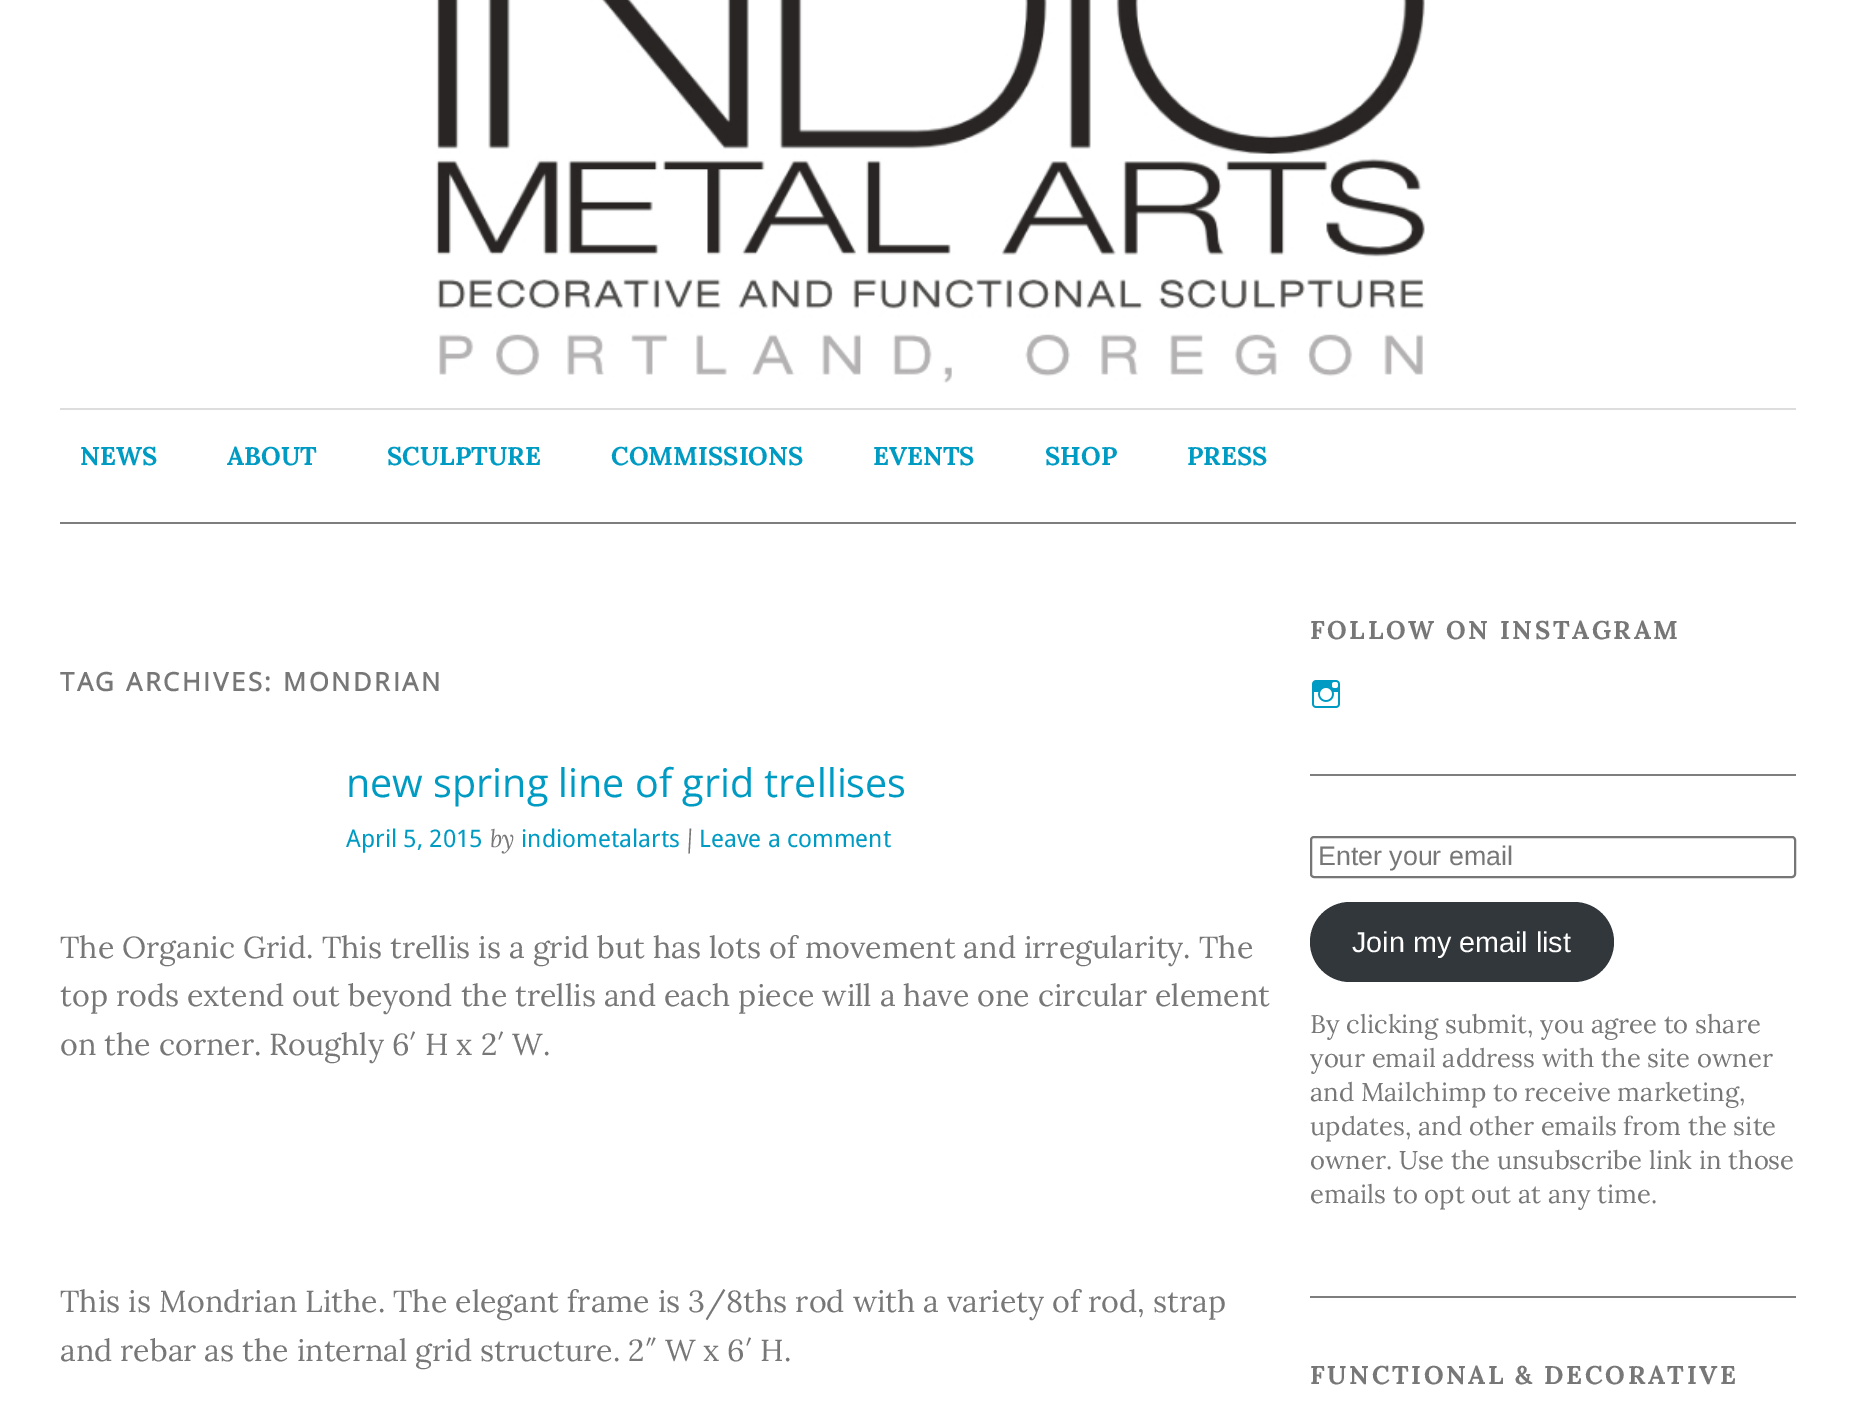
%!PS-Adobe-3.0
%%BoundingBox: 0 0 1856 1406
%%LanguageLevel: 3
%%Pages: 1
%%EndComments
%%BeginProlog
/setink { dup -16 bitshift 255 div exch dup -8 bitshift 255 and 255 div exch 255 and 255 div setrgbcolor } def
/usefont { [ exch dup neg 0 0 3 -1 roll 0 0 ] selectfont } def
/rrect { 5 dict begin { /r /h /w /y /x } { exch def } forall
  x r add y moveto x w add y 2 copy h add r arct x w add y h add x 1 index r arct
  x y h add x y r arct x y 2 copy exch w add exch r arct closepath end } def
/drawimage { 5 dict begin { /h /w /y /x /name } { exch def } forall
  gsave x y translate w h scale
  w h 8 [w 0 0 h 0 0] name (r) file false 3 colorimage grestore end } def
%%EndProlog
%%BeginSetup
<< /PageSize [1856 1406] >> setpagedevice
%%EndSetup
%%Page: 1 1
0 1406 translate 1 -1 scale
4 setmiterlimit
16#FFFFFF setink
0 0 1856 1406 rectfill
(img1.raw) 436 0 989 383 drawimage
16#DDDDDD setink
60 408 1736 2 rectfill
/Lora-Bold 25.6 usefont
16#009BC2 setink
[
    [(NEWS) 80 465]
    [(ABOUT) 227 465]
    [(SCULPTURE) 387 465]
    [(COMMISSIONS) 611 465]
    [(EVENTS) 873 465]
    [(SHOP) 1045 465]
    [(PRESS) 1187 465]
] { aload pop moveto show } forall
16#7E7E7E setink
60 522 1736 2 rectfill
/OpenSans-Bold 25.6 usefont
16#777777 setink
60 691 moveto 2.6 0 (TAG ARCHIVES: MONDRIAN) ashow
/OpenSans-Regular 39.5 usefont
16#009BC2 setink
346 797 moveto (new spring line of grid trellises) show
/DroidSans-Regular 24.25 usefont
346 847 moveto (April 5, 2015) show
/Lora-Italic 24.25 usefont
16#777777 setink
490 847 moveto (by) show
/DroidSans-Regular 24.25 usefont
16#009BC2 setink
521 847 moveto (indiometalarts) show
/Lora-Italic 24.25 usefont
16#777777 setink
687 847 moveto (|) show
/DroidSans-Regular 24.25 usefont
16#009BC2 setink
699 847 moveto (Leave a comment) show
/Lora-Regular 30.4 usefont
16#777777 setink
[
    [(The Organic Grid. This trellis is a grid but has lots of movement and irregularity. The) 60 958]
    [(top rods extend out beyond the trellis and each piece will a have one circular element) 60 1006]
    [(on the corner. Roughly 6′ H x 2′ W.) 60 1055]
    [(This is Mondrian Lithe. The elegant frame is 3/8ths rod with a variety of rod, strap) 60 1312]
    [(and rebar as the internal grid structure. 2″ W x 6′ H.) 60 1361]
] { aload pop moveto show } forall
16#7E7E7E setink
1310 774 486 2 rectfill
/Lora-Bold 25.6 usefont
16#777777 setink
1310 639 moveto 2.6 0 (FOLLOW ON INSTAGRAM) ashow
(img2.raw) 1312 680 28 28 drawimage
16#7E7E7E setink
1310 1296 486 2 rectfill
16#767676 setink
2 setlinewidth
1311 837 484 40 3 rrect stroke
/LiberationSans-Regular 26.75 usefont
16#777777 setink
1318 865 moveto (Enter your email) show
16#32373C setink
1310 902 304 80 40 rrect fill
/LiberationSans-Regular 28.75 usefont
16#FFFFFF setink
1352 952 moveto (Join my email list) show
/Lora-Regular 25.6 usefont
16#777777 setink
[
    [(By clicking submit, you agree to share) 1310 1033]
    [(your email address with the site owner) 1310 1067]
    [(and Mailchimp to receive marketing,) 1310 1101]
    [(updates, and other emails from the site) 1310 1135]
    [(owner. Use the unsubscribe link in those) 1310 1169]
    [(emails to opt out at any time.) 1310 1203]
] { aload pop moveto show } forall
/Lora-Bold 25.6 usefont
1310 1384 moveto 2.6 0 (FUNCTIONAL & DECORATIVE) ashow
showpage
%%EOF
